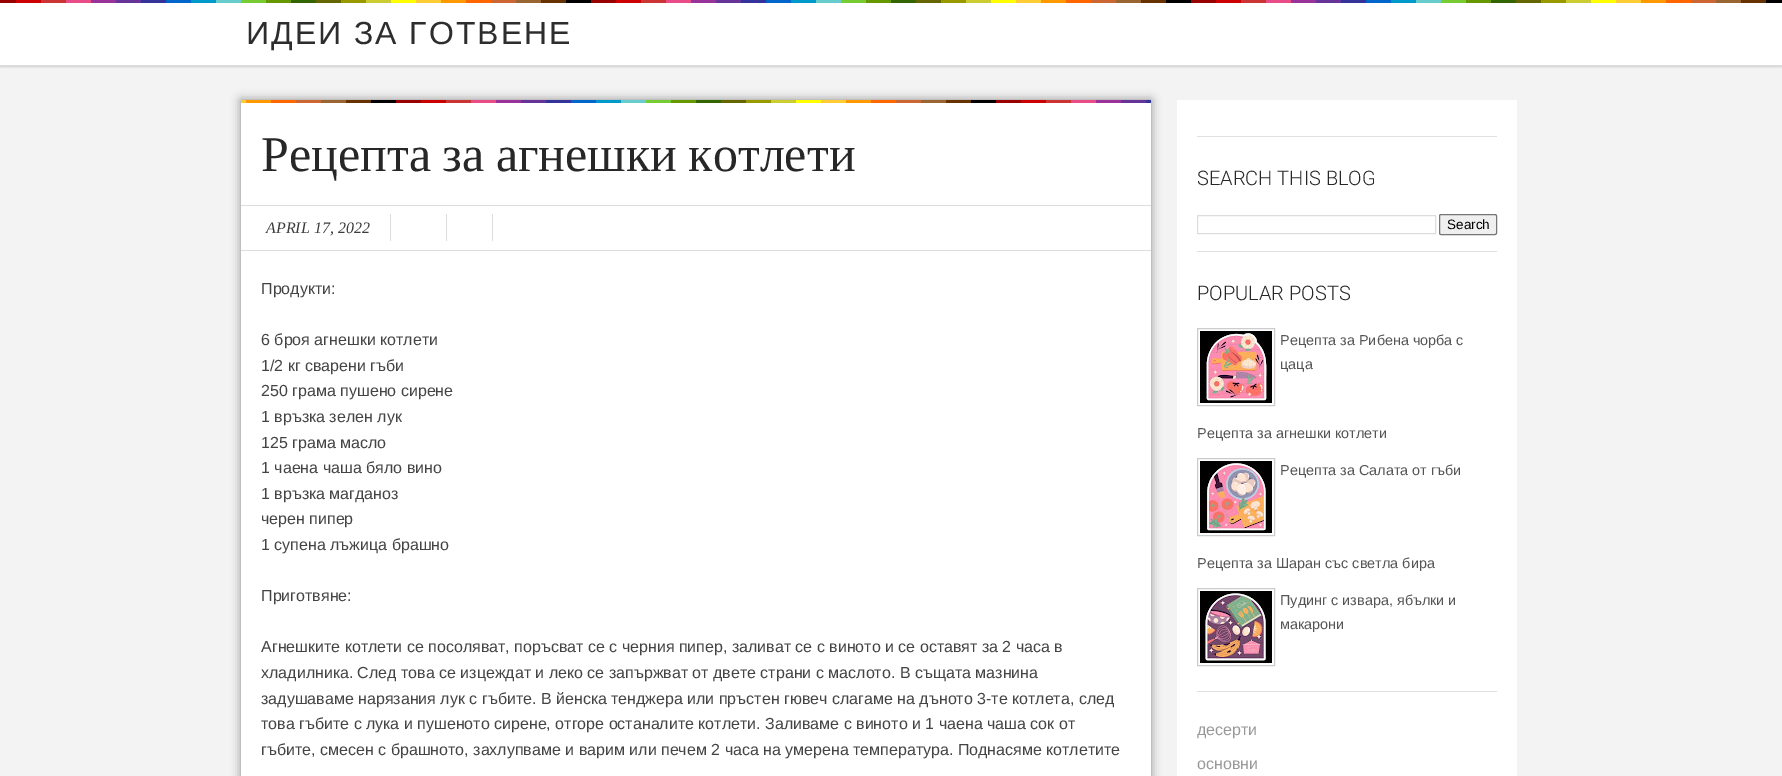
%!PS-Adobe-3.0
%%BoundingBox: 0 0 1782 776
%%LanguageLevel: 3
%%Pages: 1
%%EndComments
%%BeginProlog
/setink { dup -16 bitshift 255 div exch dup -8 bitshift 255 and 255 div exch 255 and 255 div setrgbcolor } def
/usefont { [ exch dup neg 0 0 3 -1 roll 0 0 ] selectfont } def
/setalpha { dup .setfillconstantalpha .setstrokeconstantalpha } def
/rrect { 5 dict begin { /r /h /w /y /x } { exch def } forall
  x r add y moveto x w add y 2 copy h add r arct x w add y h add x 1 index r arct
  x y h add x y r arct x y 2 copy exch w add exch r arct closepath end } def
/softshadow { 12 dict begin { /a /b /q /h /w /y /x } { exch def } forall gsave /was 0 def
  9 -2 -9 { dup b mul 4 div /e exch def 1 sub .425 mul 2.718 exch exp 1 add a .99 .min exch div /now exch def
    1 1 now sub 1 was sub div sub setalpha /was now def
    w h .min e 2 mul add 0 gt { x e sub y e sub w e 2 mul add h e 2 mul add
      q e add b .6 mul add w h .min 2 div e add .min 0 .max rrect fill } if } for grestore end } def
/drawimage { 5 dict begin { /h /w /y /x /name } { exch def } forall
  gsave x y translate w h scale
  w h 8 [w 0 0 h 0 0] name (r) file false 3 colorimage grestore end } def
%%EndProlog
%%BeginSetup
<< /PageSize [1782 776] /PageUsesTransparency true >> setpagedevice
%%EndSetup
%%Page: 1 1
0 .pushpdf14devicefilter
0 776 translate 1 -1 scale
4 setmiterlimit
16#F3F3F3 setink
0 0 1782 776 rectfill
16#000000 setink
0 1 1782 66 0 1 0.15 softshadow
16#FFFFFF setink
0 3 1782 62 rectfill
(img1.raw) 0 0 1782 3 drawimage
16#DDDDDD setink
0 65 1782 1 rectfill
/LiberationSans-Regular 32 usefont
16#2D2D2D setink
246 44 moveto 2 0 (ИДЕИ ЗА ГОТВЕНЕ) ashow
16#888888 setink
241 100 910 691 0 5 1 softshadow
16#FFFFFF setink
241 103 910 673 rectfill
(img2.raw) 241 100 910 3 drawimage
16#DDDDDD setink
241 205 910 1 rectfill
/LiberationSerif-Regular 50 usefont
16#272727 setink
261 171 moveto -1 0 32 (Рецепта за агнешки котлети) widthshow
16#DDDDDD setink
241 250 910 1 rectfill
/LiberationSerif-Italic 16 usefont
16#3C3C3C setink
266 233 moveto (APRIL 17, 2022) show
[
    [390 214 1 27 16#DDDDDD]
    [446 214 1 27 16#DDDDDD]
    [492 214 1 27 16#DDDDDD]
] { aload pop setink rectfill } forall
/LiberationSans-Regular 16 usefont
16#444444 setink
[
    [(Продукти:) 261 294]
    [(6 броя агнешки котлети) 261 345]
    [(1/2 кг сварени гъби) 261 371]
    [(250 грама пушено сирене) 261 396]
    [(1 връзка зелен лук) 261 422]
    [(125 грама масло) 261 448]
    [(1 чаена чаша бяло вино) 261 473]
    [(1 връзка магданоз) 261 499]
    [(черен пипер) 261 524]
    [(1 супена лъжица брашно) 261 550]
    [(Приготвяне:) 261 601]
    [(Агнешките котлети се посоляват, поръсват се с черния пипер, заливат се с виното и се оставят за 2 часа в) 261 652]
    [(хладилника. След това се изцеждат и леко се запържват от двете страни с маслото. В същата мазнина) 261 678]
    [(задушаваме нарязания лук с гъбите. В йенска тенджера или пръстен гювеч слагаме на дъното 3-те котлета, след) 261 704]
    [(това гъбите с лука и пушеното сирене, отгоре останалите котлети. Заливаме с виното и 1 чаена чаша сок от) 261 729]
    [(гъбите, смесен с брашното, захлупваме и варим или печем 2 часа на умерена температура. Поднасяме котлетите) 261 755]
] { aload pop moveto show } forall
[
    [1177 100 340 676 16#FFFFFF]
    [1197 136 300 1 16#E0E0E0]
    [1197 251 300 1 16#E0E0E0]
] { aload pop setink rectfill } forall
/Roboto-Light 20 usefont
16#272727 setink
1197 185 moveto (SEARCH THIS BLOG) show
16#DDDDDD setink
1197.5 215.5 238 18 rectstroke
16#EFEFEF setink
1439.5 214.5 57 20 1.5 rrect gsave fill grestore
16#767676 setink
stroke
/LiberationSans-Regular 13.5 usefont
16#000000 setink
1447 229 moveto (Search) show
16#E0E0E0 setink
1197 691 300 1 rectfill
/Roboto-Light 20 usefont
16#272727 setink
1197 300 moveto (POPULAR POSTS) show
16#CCCCCC setink
1197.5 328.5 77 77 rectstroke
(img3.raw) 1200 331 72 72 drawimage
/LiberationSans-Regular 14.4 usefont
16#555555 setink
[
    [(Рецепта за Рибена чорба с) 1280 345]
    [(цаца) 1280 369]
    [(Рецепта за агнешки котлети) 1197 438]
] { aload pop moveto show } forall
16#CCCCCC setink
1197.5 458.5 77 77 rectstroke
(img4.raw) 1200 461 72 72 drawimage
16#555555 setink
1280 475 moveto (Рецепта за Салата от гъби) show
1197 568 moveto (Рецепта за Шаран със светла бира) show
16#CCCCCC setink
1197.5 588.5 77 77 rectstroke
(img5.raw) 1200 591 72 72 drawimage
16#555555 setink
1280 605 moveto (Пудинг с извара, ябълки и) show
1280 629 moveto (макарони) show
/LiberationSans-Regular 16 usefont
16#999999 setink
1197 735 moveto (десерти) show
1197 769 moveto (основни) show
.poppdf14devicefilter showpage
%%EOF
